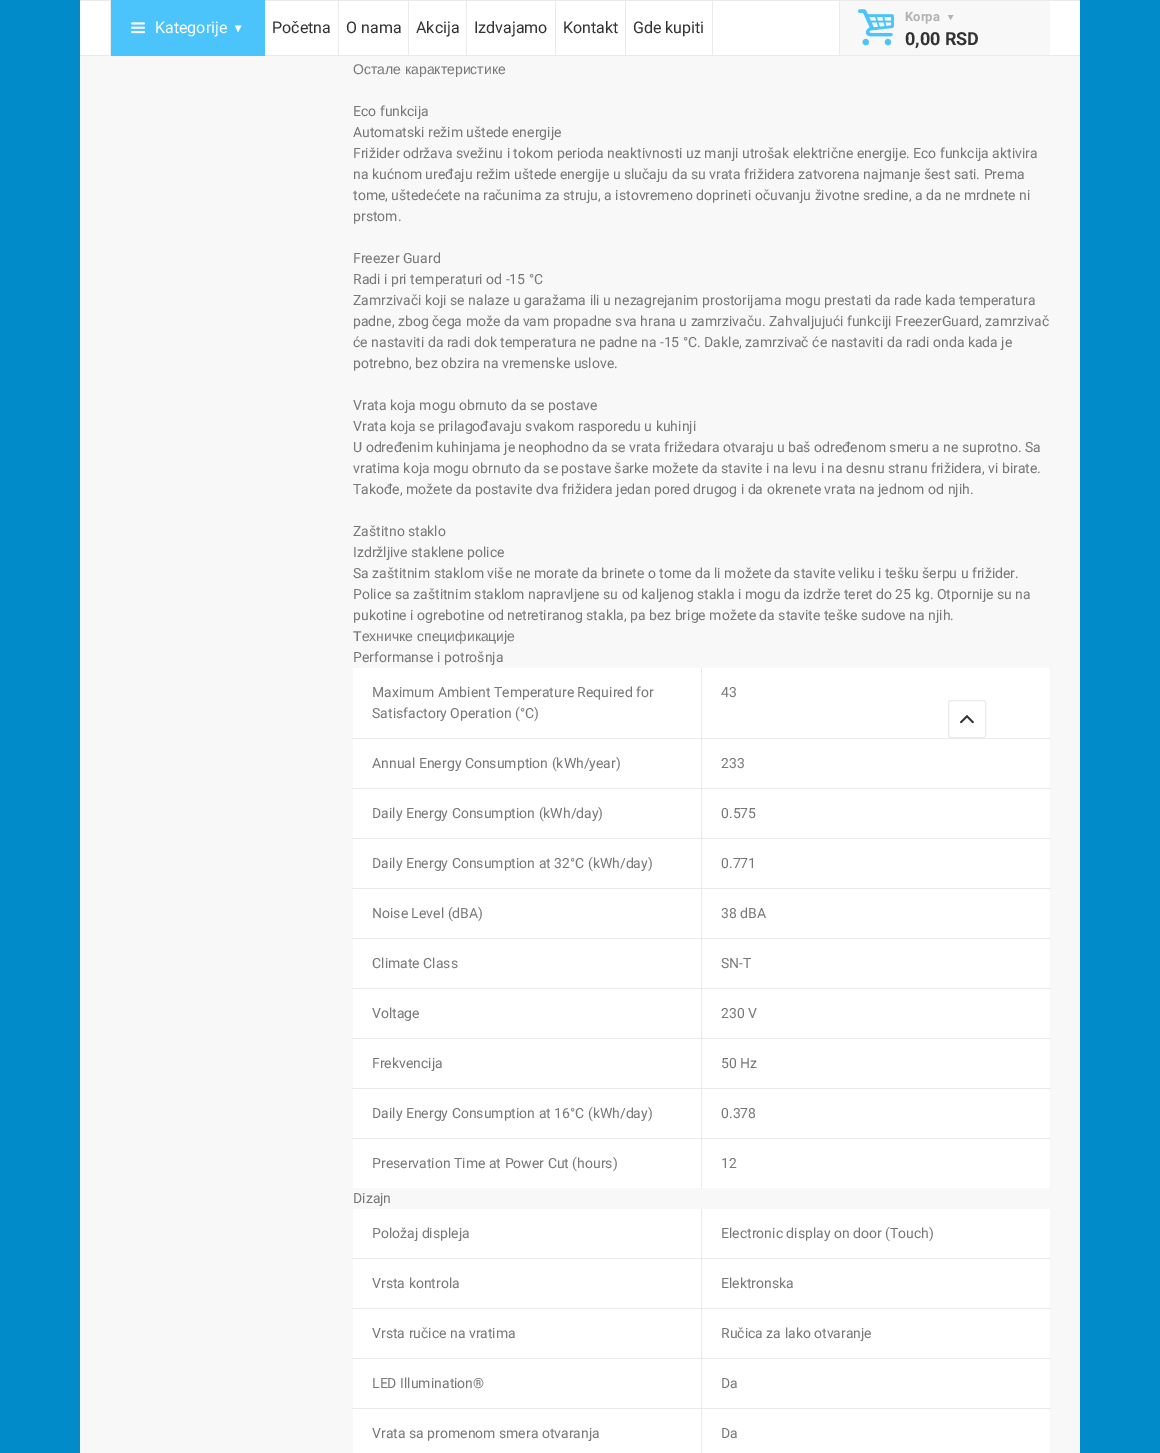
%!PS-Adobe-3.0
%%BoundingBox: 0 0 1160 1453
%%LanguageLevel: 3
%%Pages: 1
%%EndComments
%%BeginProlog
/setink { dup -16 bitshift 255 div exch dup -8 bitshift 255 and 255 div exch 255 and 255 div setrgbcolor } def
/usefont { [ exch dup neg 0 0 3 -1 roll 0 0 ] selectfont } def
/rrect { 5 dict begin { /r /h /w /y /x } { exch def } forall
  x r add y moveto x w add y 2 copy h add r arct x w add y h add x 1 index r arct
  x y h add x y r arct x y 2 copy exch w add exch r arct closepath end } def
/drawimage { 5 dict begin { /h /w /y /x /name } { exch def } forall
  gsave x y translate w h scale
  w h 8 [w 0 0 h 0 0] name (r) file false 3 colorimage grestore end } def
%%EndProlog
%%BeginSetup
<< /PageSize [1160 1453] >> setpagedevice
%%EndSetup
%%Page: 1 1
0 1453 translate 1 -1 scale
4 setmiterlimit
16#018BC8 setink
0 0 1160 1453 rectfill
[
    [80 1 1000 54 16#FFFFFF]
    [80 0 1000 1 16#EAEAEA]
    [80 55 1000 1 16#EAEAEA]
    [110 0 1 56 16#EAEAEA]
    [111 0 154 56 16#4AC4FA]
] { aload pop setink rectfill } forall
(img1.raw) 131 22 15 12 drawimage
/Roboto-Regular 16 usefont
16#FFFFFF setink
155 33 moveto (Kategorije) show
238 32 moveto 235 25.5 lineto 241.5 25.5 lineto closepath fill
16#EAEAEA setink
839 0 1 56 rectfill
338 0 1 56 rectfill
16#333333 setink
272 33 moveto (Početna) show
16#EAEAEA setink
408 0 1 56 rectfill
16#333333 setink
346 33 moveto (O nama) show
16#EAEAEA setink
466 0 1 56 rectfill
16#333333 setink
416 33 moveto (Akcija) show
16#EAEAEA setink
555 0 1 56 rectfill
16#333333 setink
474 33 moveto (Izdvajamo) show
16#EAEAEA setink
625 0 1 56 rectfill
16#333333 setink
563 33 moveto (Kontakt) show
16#EAEAEA setink
712 0 1 56 rectfill
16#333333 setink
633 33 moveto (Gde kupiti) show
16#F8F8F8 setink
840 1 210 54 rectfill
(img2.raw) 858 9 36 37 drawimage
/Roboto-Bold 13 usefont
16#B2B2B2 setink
905 21 moveto (Korpa) show
950.5 20 moveto 948 15 lineto 953.5 15 lineto closepath fill
/Roboto-Bold 18 usefont
16#333333 setink
905 45 moveto (0,00 RSD) show
16#F8F8F8 setink
80 56 1000 1397 rectfill
/LiberationSans-Regular 14 usefont
16#777777 setink
353 74 moveto (Остале карактеристике) show
/Roboto-Regular 14 usefont
[
    [(Eco funkcija) 353 116]
    [(Automatski režim uštede energije) 353 137]
    [(Frižider održava svežinu i tokom perioda neaktivnosti uz manji utrošak električne energije. Eco funkcija aktivira) 353 158]
    [(na kućnom uređaju režim uštede energije u slučaju da su vrata frižidera zatvorena najmanje šest sati. Prema) 353 179]
    [(tome, uštedećete na računima za struju, a istovremeno doprineti očuvanju životne sredine, a da ne mrdnete ni) 353 200]
    [(prstom.) 353 221]
    [(Freezer Guard) 353 263]
    [(Radi i pri temperaturi od -15 °C) 353 284]
    [(Zamrzivači koji se nalaze u garažama ili u nezagrejanim prostorijama mogu prestati da rade kada temperatura) 353 305]
    [(padne, zbog čega može da vam propadne sva hrana u zamrzivaču. Zahvaljujući funkciji FreezerGuard, zamrzivač) 353 326]
    [(će nastaviti da radi dok temperatura ne padne na -15 °C. Dakle, zamrzivač će nastaviti da radi onda kada je) 353 347]
    [(potrebno, bez obzira na vremenske uslove.) 353 368]
    [(Vrata koja mogu obrnuto da se postave) 353 410]
    [(Vrata koja se prilagođavaju svakom rasporedu u kuhinji) 353 431]
    [(U određenim kuhinjama je neophodno da se vrata frižedara otvaraju u baš određenom smeru a ne suprotno. Sa) 353 452]
    [(vratima koja mogu obrnuto da se postave šarke možete da stavite i na levu i na desnu stranu frižidera, vi birate.) 353 473]
    [(Takođe, možete da postavite dva frižidera jedan pored drugog i da okrenete vrata na jednom od njih.) 353 494]
    [(Zaštitno staklo) 353 536]
    [(Izdržljive staklene police) 353 557]
    [(Sa zaštitnim staklom više ne morate da brinete o tome da li možete da stavite veliku i tešku šerpu u frižider.) 353 578]
    [(Police sa zaštitnim staklom napravljene su od kaljenog stakla i mogu da izdrže teret do 25 kg. Otpornije su na) 353 599]
    [(pukotine i ogrebotine od netretiranog stakla, pa bez brige možete da stavite teške sudove na njih.) 353 620]
] { aload pop moveto show } forall
/LiberationSans-Regular 14 usefont
353 641 moveto (Техничке спецификације) show
/Roboto-Regular 14 usefont
353 662 moveto (Performanse i potrošnja) show
16#FFFFFF setink
353 668 348 70 rectfill
16#777777 setink
372 697 moveto (Maximum Ambient Temperature Required for) show
372 718 moveto (Satisfactory Operation \(°C\)) show
[
    [702 668 348 70 16#FFFFFF]
    [701 738 350 1 16#EAEAEA]
    [701 788 350 1 16#EAEAEA]
    [701 838 350 1 16#EAEAEA]
    [701 888 350 1 16#EAEAEA]
    [701 938 350 1 16#EAEAEA]
    [701 988 350 1 16#EAEAEA]
    [701 1038 350 1 16#EAEAEA]
    [701 1088 350 1 16#EAEAEA]
    [701 1138 350 1 16#EAEAEA]
    [701 1138 1 51 16#EAEAEA]
    [352 1138 350 1 16#EAEAEA]
    [701 1088 1 51 16#EAEAEA]
    [352 1088 350 1 16#EAEAEA]
    [701 1038 1 51 16#EAEAEA]
    [352 1038 350 1 16#EAEAEA]
    [701 988 1 51 16#EAEAEA]
    [352 988 350 1 16#EAEAEA]
    [701 938 1 51 16#EAEAEA]
    [352 938 350 1 16#EAEAEA]
    [701 888 1 51 16#EAEAEA]
    [352 888 350 1 16#EAEAEA]
    [701 838 1 51 16#EAEAEA]
    [352 838 350 1 16#EAEAEA]
    [701 788 1 51 16#EAEAEA]
    [352 788 350 1 16#EAEAEA]
    [701 738 1 51 16#EAEAEA]
    [352 738 350 1 16#EAEAEA]
    [701 668 1 71 16#EAEAEA]
] { aload pop setink rectfill } forall
16#777777 setink
721 697 moveto (43) show
16#FFFFFF setink
353 739 348 49 rectfill
16#777777 setink
372 768 moveto (Annual Energy Consumption \(kWh/year\)) show
16#FFFFFF setink
702 739 348 49 rectfill
16#777777 setink
721 768 moveto (233) show
16#FFFFFF setink
353 789 348 49 rectfill
16#777777 setink
372 818 moveto (Daily Energy Consumption \(kWh/day\)) show
16#FFFFFF setink
702 789 348 49 rectfill
16#777777 setink
721 818 moveto (0.575) show
16#FFFFFF setink
353 839 348 49 rectfill
16#777777 setink
372 868 moveto (Daily Energy Consumption at 32°C \(kWh/day\)) show
16#FFFFFF setink
702 839 348 49 rectfill
16#777777 setink
721 868 moveto (0.771) show
16#FFFFFF setink
353 889 348 49 rectfill
16#777777 setink
372 918 moveto (Noise Level \(dBA\)) show
16#FFFFFF setink
702 889 348 49 rectfill
16#777777 setink
721 918 moveto (38 dBA) show
16#FFFFFF setink
353 939 348 49 rectfill
16#777777 setink
372 968 moveto (Climate Class) show
16#FFFFFF setink
702 939 348 49 rectfill
16#777777 setink
721 968 moveto (SN-T) show
16#FFFFFF setink
353 989 348 49 rectfill
16#777777 setink
372 1018 moveto (Voltage) show
16#FFFFFF setink
702 989 348 49 rectfill
16#777777 setink
721 1018 moveto (230 V) show
16#FFFFFF setink
353 1039 348 49 rectfill
16#777777 setink
372 1068 moveto (Frekvencija) show
16#FFFFFF setink
702 1039 348 49 rectfill
16#777777 setink
721 1068 moveto (50 Hz) show
16#FFFFFF setink
353 1089 348 49 rectfill
16#777777 setink
372 1118 moveto (Daily Energy Consumption at 16°C \(kWh/day\)) show
16#FFFFFF setink
702 1089 348 49 rectfill
16#777777 setink
721 1118 moveto (0.378) show
16#FFFFFF setink
353 1139 348 49 rectfill
16#777777 setink
372 1168 moveto (Preservation Time at Power Cut \(hours\)) show
16#FFFFFF setink
702 1139 348 49 rectfill
16#777777 setink
721 1168 moveto (12) show
353 1203 moveto (Dizajn) show
16#FFFFFF setink
353 1209 348 49 rectfill
16#777777 setink
372 1238 moveto (Položaj displeja) show
[
    [702 1209 348 49 16#FFFFFF]
    [701 1258 350 1 16#EAEAEA]
    [701 1308 350 1 16#EAEAEA]
    [701 1358 350 1 16#EAEAEA]
    [701 1408 350 1 16#EAEAEA]
    [701 1408 1 45 16#EAEAEA]
    [352 1408 350 1 16#EAEAEA]
    [701 1358 1 51 16#EAEAEA]
    [352 1358 350 1 16#EAEAEA]
    [701 1308 1 51 16#EAEAEA]
    [352 1308 350 1 16#EAEAEA]
    [701 1258 1 51 16#EAEAEA]
    [352 1258 350 1 16#EAEAEA]
    [701 1209 1 50 16#EAEAEA]
] { aload pop setink rectfill } forall
16#777777 setink
721 1238 moveto (Electronic display on door \(Touch\)) show
16#FFFFFF setink
353 1259 348 49 rectfill
16#777777 setink
372 1288 moveto (Vrsta kontrola) show
16#FFFFFF setink
702 1259 348 49 rectfill
16#777777 setink
721 1288 moveto (Elektronska) show
16#FFFFFF setink
353 1309 348 49 rectfill
16#777777 setink
372 1338 moveto (Vrsta ručice na vratima) show
16#FFFFFF setink
702 1309 348 49 rectfill
16#777777 setink
721 1338 moveto (Ručica za lako otvaranje) show
16#FFFFFF setink
353 1359 348 49 rectfill
16#777777 setink
372 1388 moveto (LED Illumination®) show
16#FFFFFF setink
702 1359 348 49 rectfill
16#777777 setink
721 1388 moveto (Da) show
16#FFFFFF setink
353 1409 348 44 rectfill
16#777777 setink
372 1438 moveto (Vrata sa promenom smera otvaranja) show
16#FFFFFF setink
702 1409 348 44 rectfill
16#777777 setink
721 1438 moveto (Da) show
16#EAEAEA setink
948.5 700.5 37 37 2.5 rrect stroke
(img3.raw) 960 714 14 10 drawimage
showpage
%%EOF
